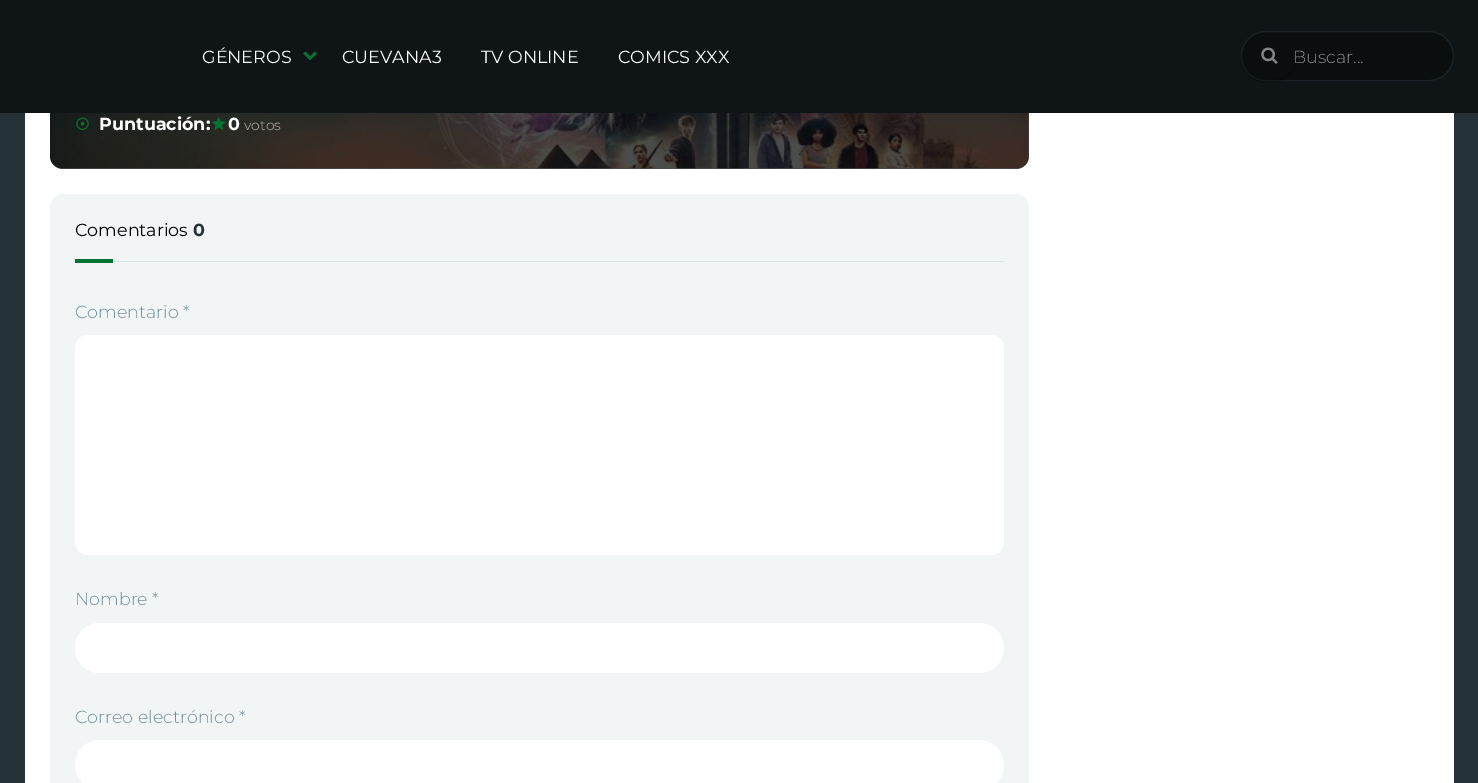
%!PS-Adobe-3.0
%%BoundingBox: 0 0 1478 783
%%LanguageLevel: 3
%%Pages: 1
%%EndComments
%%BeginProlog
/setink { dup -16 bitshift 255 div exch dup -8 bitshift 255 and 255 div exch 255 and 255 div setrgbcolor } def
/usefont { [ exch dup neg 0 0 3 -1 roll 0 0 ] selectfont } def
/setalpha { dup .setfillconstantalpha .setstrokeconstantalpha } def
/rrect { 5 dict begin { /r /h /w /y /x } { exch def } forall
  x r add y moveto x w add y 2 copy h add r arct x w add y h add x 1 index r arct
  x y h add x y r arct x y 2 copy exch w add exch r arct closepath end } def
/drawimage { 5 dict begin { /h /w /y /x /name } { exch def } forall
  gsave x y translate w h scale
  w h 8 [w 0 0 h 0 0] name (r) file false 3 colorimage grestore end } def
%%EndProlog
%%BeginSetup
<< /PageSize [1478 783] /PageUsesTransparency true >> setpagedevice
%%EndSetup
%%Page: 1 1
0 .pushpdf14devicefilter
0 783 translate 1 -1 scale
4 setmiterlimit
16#253238 setink
0 0 1478 783 rectfill
16#FFFFFF setink
25 113 1429 670 rectfill
(img3.raw) 50 113 979 56 drawimage
0.3 setalpha
16#253238 setink
50 -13 979 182 13 rrect fill
0.6 setalpha
16#000000 setink
50 -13 979 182 13 rrect fill
1 setalpha
16#0F1416 setink
0 0 1478 113 rectfill
/Montserrat-Regular 17.5 usefont
16#FFFFFF setink
202 63 moveto (GÉNEROS) show
(img1.raw) 303 51 14 10 drawimage
[
    [(CUEVANA3) 342 63]
    [(TV ONLINE) 481 63]
    [(COMICS XXX) 618 63]
] { aload pop moveto show } forall
16#0B0E0F setink
1241.5 31.5 212 49 24.5 rrect gsave fill grestore
16#1A2327 setink
stroke
/Montserrat-Light 17.5 usefont
16#878A8B setink
1293 63 moveto (Buscar...) show
0.2 setalpha
16#000000 setink
1241 53 moveto 1241 58 1241 63 1243 67 curveto 1254 94 1302 85 1298 53 curveto 1298 64 1291 73 1282 77 curveto 1275 78 lineto 1257 82 1241 71 1241 53 curveto closepath fill
1 setalpha
(img2.raw) 1261 47 17 17 drawimage
(img4.raw) 76 117 13 13 drawimage
/Montserrat-Bold 17.5 usefont
16#FFFFFF setink
99 130 moveto (Puntuación:) show
(img5.raw) 211 116 15 15 drawimage
228 130 moveto (0) show
/Montserrat-Light 14 usefont
16#BFBFBD setink
244 130 moveto (votos) show
16#F2F5F6 setink
50 194 979 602 13 rrect fill
/Montserrat-Regular 17.5 usefont
16#000000 setink
75 236 moveto (Comentarios) show
/Montserrat-Bold 17.5 usefont
16#253238 setink
193 236 moveto (0) show
16#037333 setink
75 259 38 4 rectfill
16#DAE1E4 setink
113 261 891 1 rectfill
/Montserrat-Light 17.5 usefont
16#78909C setink
75 318 moveto (Comentario *) show
16#FFFFFF setink
75 335 929 220 13 rrect fill
16#78909C setink
75 605 moveto (Nombre *) show
16#FFFFFF setink
75 623 929 50 25 rrect fill
16#78909C setink
75 723 moveto (Correo electrónico *) show
16#FFFFFF setink
75 740 929 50 25 rrect fill
.poppdf14devicefilter showpage
%%EOF
